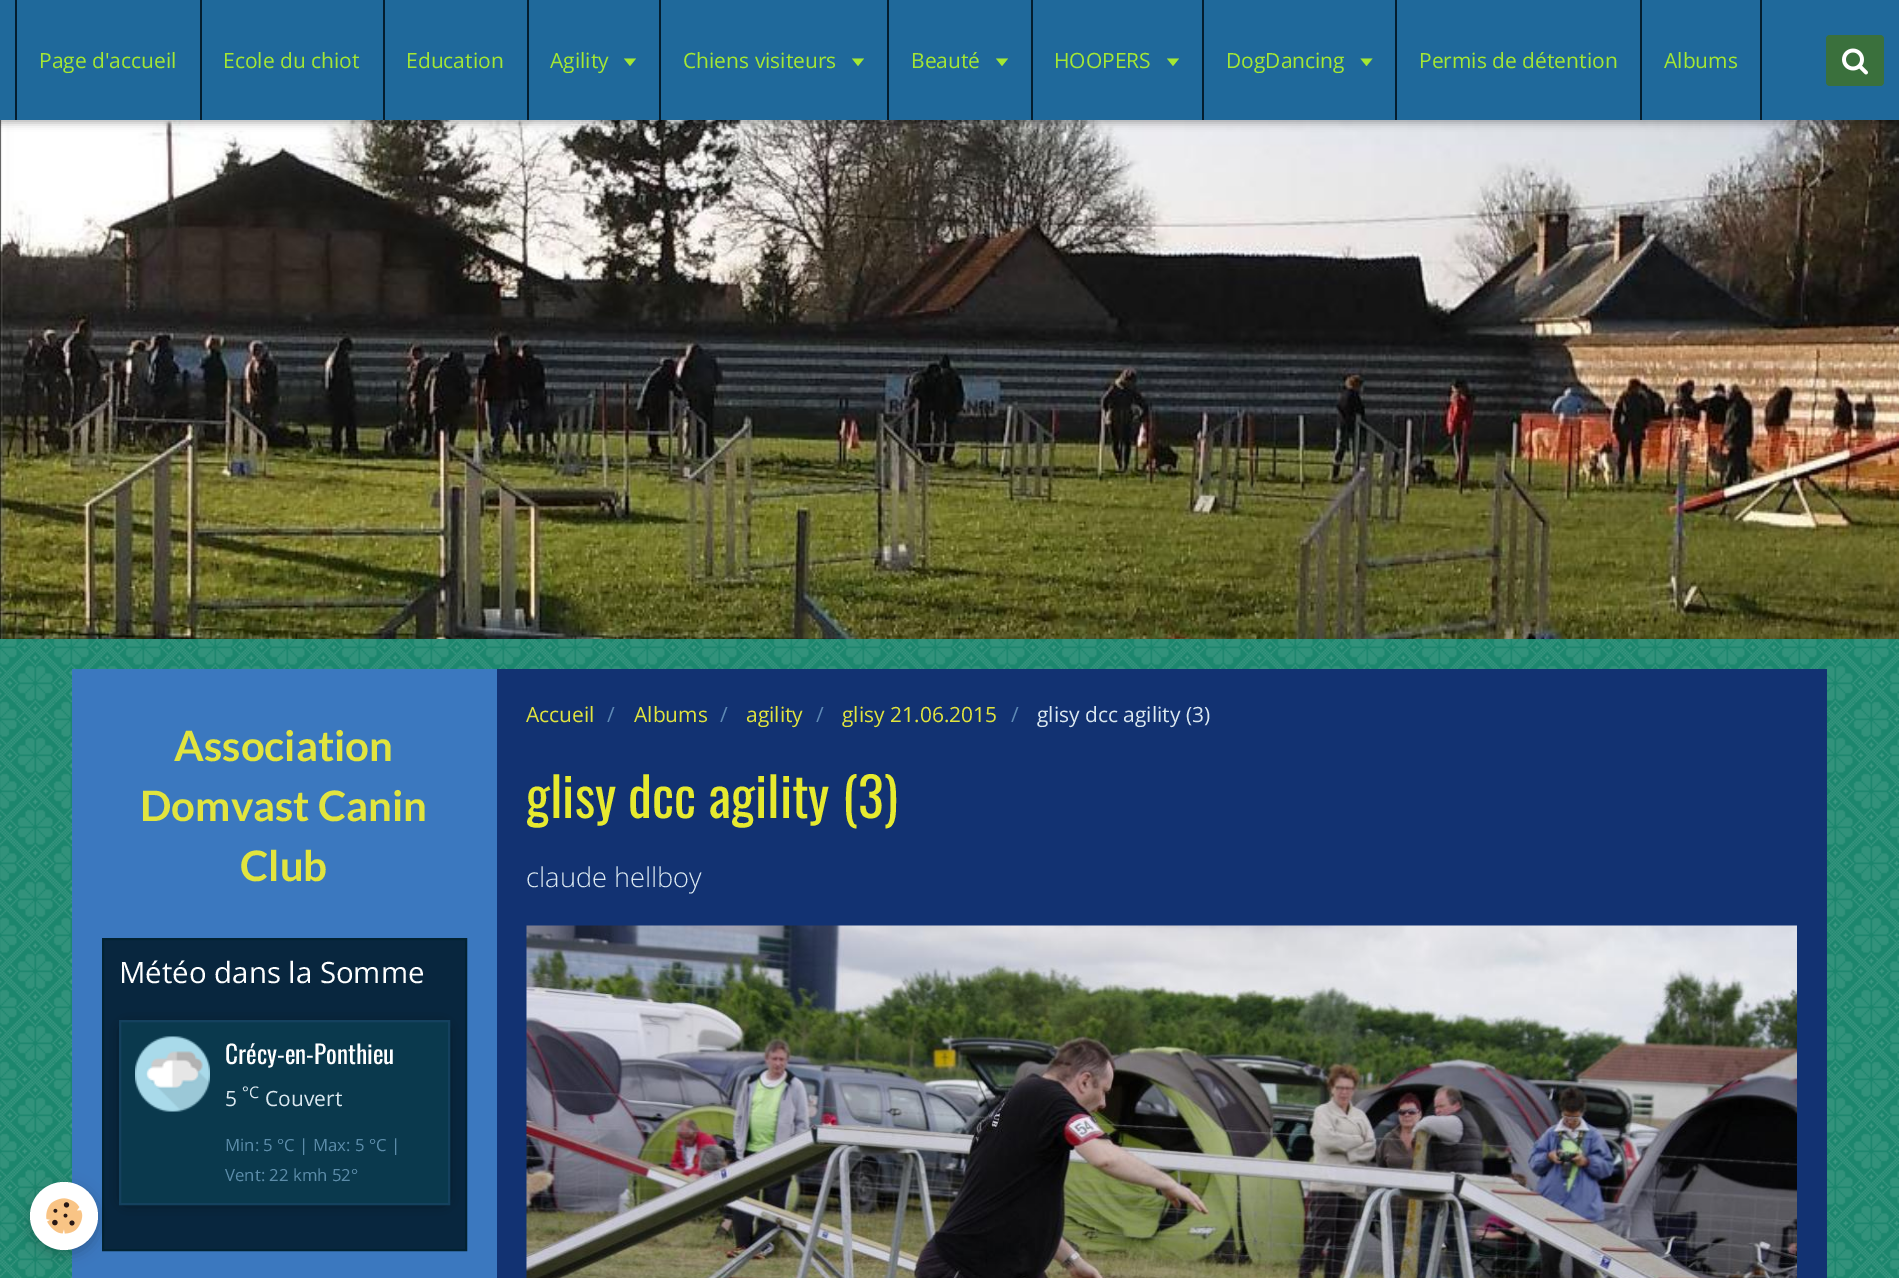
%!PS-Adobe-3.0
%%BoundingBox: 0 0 1899 1278
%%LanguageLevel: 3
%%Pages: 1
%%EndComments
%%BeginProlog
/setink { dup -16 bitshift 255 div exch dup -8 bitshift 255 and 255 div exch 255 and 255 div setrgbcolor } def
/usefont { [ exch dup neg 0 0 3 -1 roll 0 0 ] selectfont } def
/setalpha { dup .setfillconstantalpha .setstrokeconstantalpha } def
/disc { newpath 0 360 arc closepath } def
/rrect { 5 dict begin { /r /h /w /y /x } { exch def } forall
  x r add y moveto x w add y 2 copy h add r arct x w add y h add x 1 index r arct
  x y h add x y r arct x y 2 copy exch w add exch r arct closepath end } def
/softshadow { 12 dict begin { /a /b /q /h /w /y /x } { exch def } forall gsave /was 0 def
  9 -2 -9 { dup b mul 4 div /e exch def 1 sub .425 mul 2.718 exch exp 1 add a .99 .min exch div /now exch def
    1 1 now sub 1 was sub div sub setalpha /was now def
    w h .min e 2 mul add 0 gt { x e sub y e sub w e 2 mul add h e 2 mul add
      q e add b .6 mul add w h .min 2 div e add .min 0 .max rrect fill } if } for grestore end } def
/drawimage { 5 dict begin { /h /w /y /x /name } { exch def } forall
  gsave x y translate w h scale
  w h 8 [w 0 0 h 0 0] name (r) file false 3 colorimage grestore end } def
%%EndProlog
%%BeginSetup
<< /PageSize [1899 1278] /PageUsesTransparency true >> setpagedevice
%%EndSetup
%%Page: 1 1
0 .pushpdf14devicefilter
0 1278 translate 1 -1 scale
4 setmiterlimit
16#1C866D setink
0 0 1899 1278 rectfill
(img1.raw) 0 639 1899 639 drawimage
(img3.raw) 0 120 1899 519 drawimage
16#000000 setink
0 3 1899 120 0 4 0.3 softshadow
[
    [0 0 1899 120 16#1F699B]
    [200 0 2 120 16#041E2F]
    [15 0 2 120 16#041E2F]
] { aload pop setink rectfill } forall
/OpenSans-Regular 21 usefont
16#A4E733 setink
39 68 moveto (Page d'accueil) show
16#041E2F setink
383 0 2 120 rectfill
16#A4E733 setink
223 68 moveto (Ecole du chiot) show
16#041E2F setink
527 0 2 120 rectfill
16#A4E733 setink
406 68 moveto (Education) show
16#041E2F setink
659 0 2 120 rectfill
16#A4E733 setink
550 68 moveto (Agility) show
624 58.5 moveto 636 58.5 lineto 630 66 lineto closepath fill
16#041E2F setink
887 0 2 120 rectfill
16#A4E733 setink
683 68 moveto (Chiens visiteurs) show
852 58.5 moveto 864 58.5 lineto 858 66 lineto closepath fill
16#041E2F setink
1031 0 2 120 rectfill
16#A4E733 setink
911 68 moveto (Beauté) show
996 58.5 moveto 1008 58.5 lineto 1002 66 lineto closepath fill
16#041E2F setink
1202 0 2 120 rectfill
16#A4E733 setink
1054 68 moveto (HOOPERS) show
1167 58.5 moveto 1179 58.5 lineto 1173 66 lineto closepath fill
16#041E2F setink
1395 0 2 120 rectfill
16#A4E733 setink
1226 68 moveto (DogDancing) show
1360.5 58.5 moveto 1372.5 58.5 lineto 1366.5 66 lineto closepath fill
16#041E2F setink
1640 0 2 120 rectfill
16#A4E733 setink
1419 68 moveto (Permis de détention) show
16#041E2F setink
1760 0 2 120 rectfill
16#A4E733 setink
1664 68 moveto (Albums) show
16#3A703C setink
1826 35 58 51 4 rrect fill
(img2.raw) 1842 48 26 27 drawimage
16#3B78BF setink
72 669 425 609 rectfill
/Lato-Bold 42 usefont
16#E1E43E setink
[
    [(Association) 174 761]
    [(Domvast Canin) 140 821]
    [(Club) 240 881]
] { aload pop moveto show } forall
16#08263E setink
103 939 moveto 466 939 lineto 466 1250 lineto 103 1250 lineto closepath gsave fill grestore
16#022231 setink
2 setlinewidth
stroke
/OpenSans-Regular 29.4 usefont
16#FFFFFF setink
119 983 moveto (Météo dans la Somme) show
16#000000 setink
126 1029 317 170 0 7.5 1 softshadow
16#0A394D setink
120 1021 moveto 449 1021 lineto 449 1204 lineto 120 1204 lineto closepath gsave fill grestore
16#14415E setink
stroke
(img4.raw) 135 1036 75 76 drawimage
/Oswald-Regular 25.25 usefont
16#FFFFFF setink
225 1064 moveto (Crécy-en-Ponthieu) show
/OpenSans-Regular 21 usefont
16#DBE8F0 setink
225 1106 moveto (5) show
/OpenSans-Regular 16 usefont
242 1098 moveto (°C) show
/OpenSans-Regular 21 usefont
265 1106 moveto (Couvert) show
/OpenSans-Regular 16.75 usefont
16#5B8CA9 setink
225 1151 moveto (Min: 5 °C | Max: 5 °C |) show
225 1181 moveto (Vent: 22 kmh 52°) show
16#123272 setink
497 669 1330 609 rectfill
/OpenSans-Regular 21 usefont
16#E1E43E setink
526 722 moveto (Accueil) show
16#5E8AB5 setink
607 722 moveto (/) show
16#E1E43E setink
634 722 moveto (Albums) show
16#5E8AB5 setink
720 722 moveto (/) show
16#E1E43E setink
746 722 moveto (agility) show
16#5E8AB5 setink
816 722 moveto (/) show
16#E1E43E setink
842 722 moveto (glisy 21.06.2015) show
16#5E8AB5 setink
1011 722 moveto (/) show
16#DBE8F0 setink
1037 722 moveto (glisy dcc agility \(3\)) show
/Oswald-Regular 54 usefont
16#E6EA2F setink
526 818 moveto (glisy dcc agility \(3\)) show
/OpenSans-Light 27.25 usefont
16#DBE8F0 setink
526 887 moveto (claude hellboy) show
(img5.raw) 526 925 1271 353 drawimage
16#000000 setink
30 1187 68 67 33.5 7.5 0.24 softshadow
16#FFFFFF setink
64 1216 34 disc fill
(img6.raw) 46 1198 37 36 drawimage
.poppdf14devicefilter showpage
%%EOF
